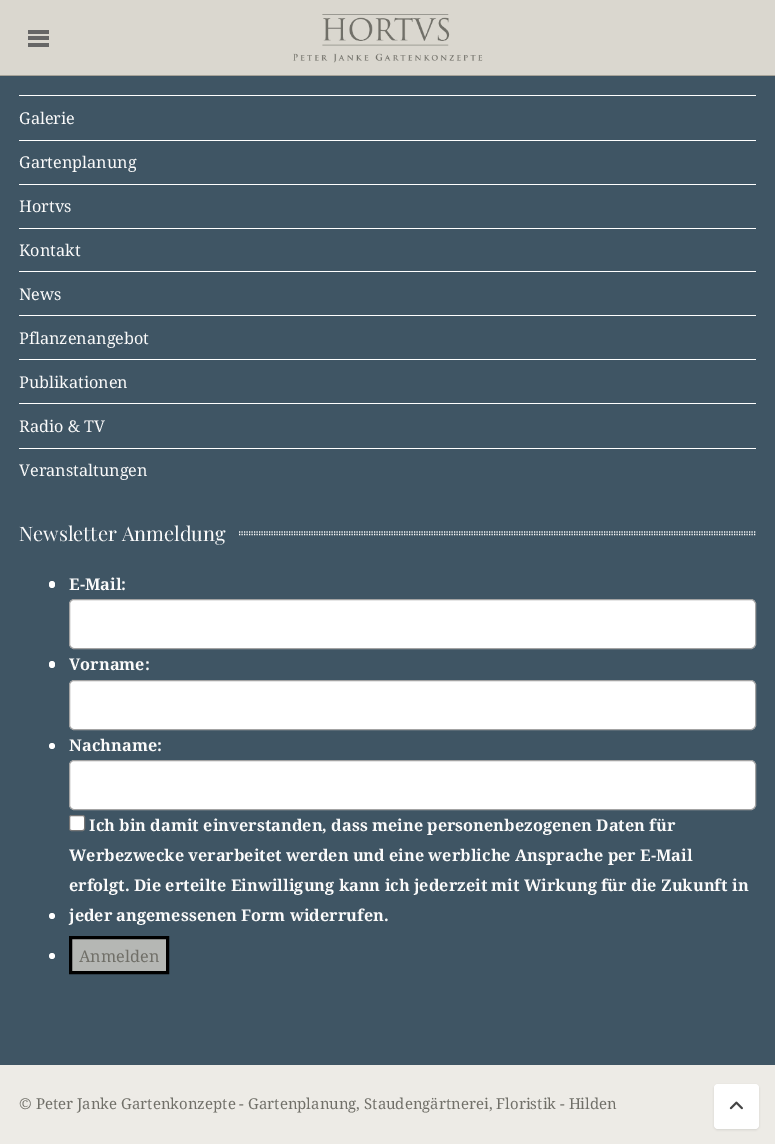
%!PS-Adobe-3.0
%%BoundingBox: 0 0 775 1144
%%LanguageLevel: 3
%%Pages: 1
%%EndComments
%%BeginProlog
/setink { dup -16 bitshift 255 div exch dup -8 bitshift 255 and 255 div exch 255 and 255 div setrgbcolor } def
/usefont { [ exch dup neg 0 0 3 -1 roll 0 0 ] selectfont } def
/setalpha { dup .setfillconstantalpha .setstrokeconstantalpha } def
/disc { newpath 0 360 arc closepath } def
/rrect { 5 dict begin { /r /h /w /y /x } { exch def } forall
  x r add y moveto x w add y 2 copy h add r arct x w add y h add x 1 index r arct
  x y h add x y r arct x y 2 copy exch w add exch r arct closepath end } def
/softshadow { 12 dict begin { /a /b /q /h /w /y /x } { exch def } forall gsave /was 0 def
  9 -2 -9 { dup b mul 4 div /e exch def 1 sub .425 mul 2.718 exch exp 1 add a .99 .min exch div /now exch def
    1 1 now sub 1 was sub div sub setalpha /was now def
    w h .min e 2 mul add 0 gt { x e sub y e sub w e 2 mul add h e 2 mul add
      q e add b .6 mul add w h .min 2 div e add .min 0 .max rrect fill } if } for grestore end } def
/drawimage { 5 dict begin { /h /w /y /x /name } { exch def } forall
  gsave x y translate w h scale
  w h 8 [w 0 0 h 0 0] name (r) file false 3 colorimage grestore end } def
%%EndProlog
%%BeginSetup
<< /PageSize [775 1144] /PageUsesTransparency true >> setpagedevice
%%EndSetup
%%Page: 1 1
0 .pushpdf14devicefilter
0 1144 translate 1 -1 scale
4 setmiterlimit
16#3F5564 setink
0 0 775 1144 rectfill
16#000000 setink
0 1 775 75 0 1 0.1 softshadow
[
    [0 0 775 75 16#DAD7CF]
    [28 36 21 4 16#666666]
    [28 30 21 4 16#666666]
    [28 43 21 4 16#666666]
] { aload pop setink rectfill } forall
(img1.raw) 293 14 190 49 drawimage
16#A6A399 setink
0 75 775 1 rectfill
16#FFFFFF setink
19 95 737 1 rectfill
/NotoSerif-Regular 16.25 usefont
16#FAFAFA setink
19 124 moveto (Galerie) show
16#FFFFFF setink
19 140 737 1 rectfill
16#FAFAFA setink
19 168 moveto (Gartenplanung) show
16#FFFFFF setink
19 184 737 1 rectfill
16#FAFAFA setink
19 212 moveto (Hortvs) show
16#FFFFFF setink
19 228 737 1 rectfill
16#FAFAFA setink
19 256 moveto (Kontakt) show
16#FFFFFF setink
19 271 737 1 rectfill
16#FAFAFA setink
19 300 moveto (News) show
16#FFFFFF setink
19 315 737 1 rectfill
16#FAFAFA setink
19 344 moveto (Pflanzenangebot) show
16#FFFFFF setink
19 359 737 1 rectfill
16#FAFAFA setink
19 388 moveto (Publikationen) show
16#FFFFFF setink
19 403 737 1 rectfill
16#FAFAFA setink
19 432 moveto (Radio & TV) show
16#FFFFFF setink
19 448 737 1 rectfill
16#FAFAFA setink
19 476 moveto (Veranstaltungen) show
16#FFFFFF setink
1.2 setlinewidth
[1.25 1.25] 0 setdash
19 532 moveto 756 532 lineto stroke
19 534.5 moveto 756 534.5 lineto stroke
16#3F5564 setink
19 531 219 5 rectfill
/PlayfairDisplay-Regular 20 usefont
16#FAFAFA setink
19 541 moveto (Newsletter Anmeldung) show
16#FFFFFF setink
49 581 6 7 3 rrect fill
/NotoSerif-Bold 16.25 usefont
16#FAFAFA setink
69 590 moveto (E-Mail:) show
16#FFFFFF setink
69.5 599.5 686 49 4.5 rrect gsave fill grestore
16#A3A3A3 setink
1 setlinewidth
[] 0 setdash
stroke
16#FFFFFF setink
49 661 6 7 3 rrect fill
16#FAFAFA setink
69 670 moveto (Vorname:) show
16#FFFFFF setink
69.5 680.5 686 49 4.5 rrect gsave fill grestore
16#A3A3A3 setink
stroke
16#FFFFFF setink
52 746 3 disc fill
16#FAFAFA setink
69 751 moveto (Nachname:) show
16#FFFFFF setink
69.5 760.5 686 49 4.5 rrect gsave fill grestore
16#A3A3A3 setink
stroke
16#FFFFFF setink
52 916 3 disc fill
69.5 815.5 15 15 2 rrect gsave fill grestore
16#767676 setink
stroke
16#FAFAFA setink
[
    [(Ich bin damit einverstanden, dass meine personenbezogenen Daten für) 89 831]
    [(Werbezwecke verarbeitet werden und eine werbliche Ansprache per E-Mail) 69 861]
    [(erfolgt. Die erteilte Einwilligung kann ich jederzeit mit Wirkung für die Zukunft in) 69 891]
    [(jeder angemessenen Form widerrufen.) 69 921]
] { aload pop moveto show } forall
16#FFFFFF setink
52 956 3 disc fill
16#B5B7B4 setink
70.5 937.5 moveto 167.5 937.5 lineto 167.5 972.5 lineto 70.5 972.5 lineto closepath gsave fill grestore
16#000000 setink
3 setlinewidth
stroke
/NotoSerif-Regular 16.25 usefont
16#706F68 setink
79 962 moveto (Anmelden) show
16#EDEBE6 setink
0 1065 775 79 rectfill
/NotoSerif-Regular 15 usefont
16#706F68 setink
19 1109 moveto (© Peter Janke Gartenkonzepte - Gartenplanung, Staudengärtnerei, Floristik - Hilden) show
16#000000 setink
714 1085 45 45 4 1 0.1 softshadow
16#FFFFFF setink
714 1084 45 45 4 rrect fill
(img2.raw) 729 1101 14 9 drawimage
.poppdf14devicefilter showpage
%%EOF
